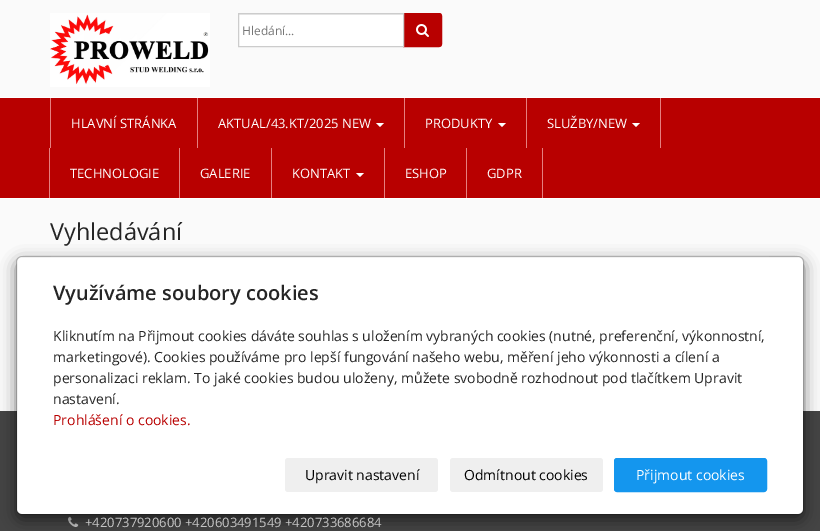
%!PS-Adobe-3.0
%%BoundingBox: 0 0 820 531
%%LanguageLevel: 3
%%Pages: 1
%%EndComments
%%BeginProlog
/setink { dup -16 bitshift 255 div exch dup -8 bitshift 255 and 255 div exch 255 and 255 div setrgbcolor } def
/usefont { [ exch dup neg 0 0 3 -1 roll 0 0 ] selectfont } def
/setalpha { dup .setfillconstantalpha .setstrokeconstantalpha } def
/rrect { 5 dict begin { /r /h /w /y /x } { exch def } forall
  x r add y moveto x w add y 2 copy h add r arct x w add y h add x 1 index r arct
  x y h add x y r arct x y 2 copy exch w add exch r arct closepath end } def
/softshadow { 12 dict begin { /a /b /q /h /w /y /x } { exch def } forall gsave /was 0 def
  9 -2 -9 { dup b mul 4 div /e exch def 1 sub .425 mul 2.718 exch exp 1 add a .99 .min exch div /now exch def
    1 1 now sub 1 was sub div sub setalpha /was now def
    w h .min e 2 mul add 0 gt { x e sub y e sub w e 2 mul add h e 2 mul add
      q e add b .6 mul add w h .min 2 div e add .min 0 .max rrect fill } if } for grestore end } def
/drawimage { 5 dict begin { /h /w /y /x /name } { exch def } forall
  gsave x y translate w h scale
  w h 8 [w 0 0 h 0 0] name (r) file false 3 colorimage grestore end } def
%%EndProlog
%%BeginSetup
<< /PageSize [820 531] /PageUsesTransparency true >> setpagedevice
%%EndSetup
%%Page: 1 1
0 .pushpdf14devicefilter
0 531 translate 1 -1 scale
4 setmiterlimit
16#FAFAFA setink
0 0 820 531 rectfill
(img1.raw) 50 13 160 74 drawimage
16#FFFFFF setink
239 15 164 31 rectfill
16#ECECEC setink
239 14 164 1 rectfill
16#B80000 setink
403.5 13.5 moveto 439 13.5 lineto 440.5 13.5 441.5 14.5 441.5 16 curveto 441.5 44 lineto 441.5 45.5 440.5 46.5 439 46.5 curveto 403.5 46.5 lineto closepath gsave fill grestore
stroke
16#CCCCCC setink
238.5 13.5 165 33 rectstroke
/OpenSans-Regular 12 usefont
16#777777 setink
242 35 moveto (Hledání...) show
(img2.raw) 416 24 13 13 drawimage
[
    [0 98 820 100 16#B80000]
    [0 97 820 1 16#FFFFFF]
    [0 198 820 1 16#FFFFFF]
    [197 98 1 50 16#E57F7F]
    [50 98 1 50 16#E57F7F]
] { aload pop setink rectfill } forall
/OpenSans-Regular 13 usefont
16#FFFFFF setink
71 128 moveto (HLAVNÍ STRÁNKA) show
16#E57F7F setink
404 98 1 50 rectfill
16#FFFFFF setink
218 128 moveto (AKTUAL/43.KT/2025 NEW) show
376 123 moveto 384 123 lineto 380 127 lineto closepath fill
16#E57F7F setink
526 98 1 50 rectfill
16#FFFFFF setink
425 128 moveto (PRODUKTY) show
498 123 moveto 506 123 lineto 502 127 lineto closepath fill
16#E57F7F setink
660 98 1 50 rectfill
16#FFFFFF setink
547 128 moveto (SLUŽBY/NEW) show
632 123 moveto 640 123 lineto 636 127 lineto closepath fill
16#E57F7F setink
179 148 1 50 rectfill
49 148 1 50 rectfill
16#FFFFFF setink
70 178 moveto (TECHNOLOGIE) show
16#E57F7F setink
271 148 1 50 rectfill
16#FFFFFF setink
200 178 moveto (GALERIE) show
16#E57F7F setink
384 148 1 50 rectfill
16#FFFFFF setink
292 178 moveto (KONTAKT) show
356 173 moveto 364 173 lineto 360 177 lineto closepath fill
16#E57F7F setink
466 148 1 50 rectfill
16#FFFFFF setink
405 178 moveto (ESHOP) show
16#E57F7F setink
542 148 1 50 rectfill
16#FFFFFF setink
487 178 moveto (GDPR) show
/OpenSans-Regular 23.5 usefont
16#252525 setink
50 240 moveto (Vyhledávání) show
16#FFFFFF setink
51 256 718 1 rectfill
16#444444 setink
0 411 820 120 rectfill
(img3.raw) 68 516 11 11 drawimage
16#000000 setink
16 261 788 259 6 7.5 0.5 softshadow
16#FFFFFF setink
17 257 786 257 5 rrect fill
0.2 setalpha
16#000000 setink
16.5 256.5 787 258 5.5 rrect stroke
/OpenSans-SemiBold 20 usefont
1 setalpha
16#252525 setink
53 300 moveto (Využíváme soubory cookies) show
/OpenSans-Regular 14 usefont
[
    [(Kliknutím na Přijmout cookies dáváte souhlas s uložením vybraných cookies \(nutné, preferenční, výkonnostní,) 53 341]
    [(marketingové\). Cookies používáme pro lepší fungování našeho webu, měření jeho výkonnosti a cílení a) 53 362]
    [(personalizaci reklam. To jaké cookies budou uloženy, můžete svobodně rozhodnout pod tlačítkem Upravit) 53 383]
    [(nastavení.) 53 404]
] { aload pop moveto show } forall
16#B80000 setink
53 425 moveto (Prohlášení o cookies.) show
16#EFEFEF setink
285 458 153 34 3 rrect fill
16#000000 setink
305 480 moveto (Upravit nastavení) show
16#EFEFEF setink
450 458 153 34 3 rrect fill
16#000000 setink
464 480 moveto (Odmítnout cookies) show
16#1496EE setink
614.5 458.5 152 33 2.5 rrect gsave fill grestore
stroke
16#FFFFFF setink
636 480 moveto (Přijmout cookies) show
/OpenSans-Regular 13 usefont
16#C7C7C7 setink
85 527 moveto (+420737920600 +420603491549 +420733686684) show
.poppdf14devicefilter showpage
%%EOF
